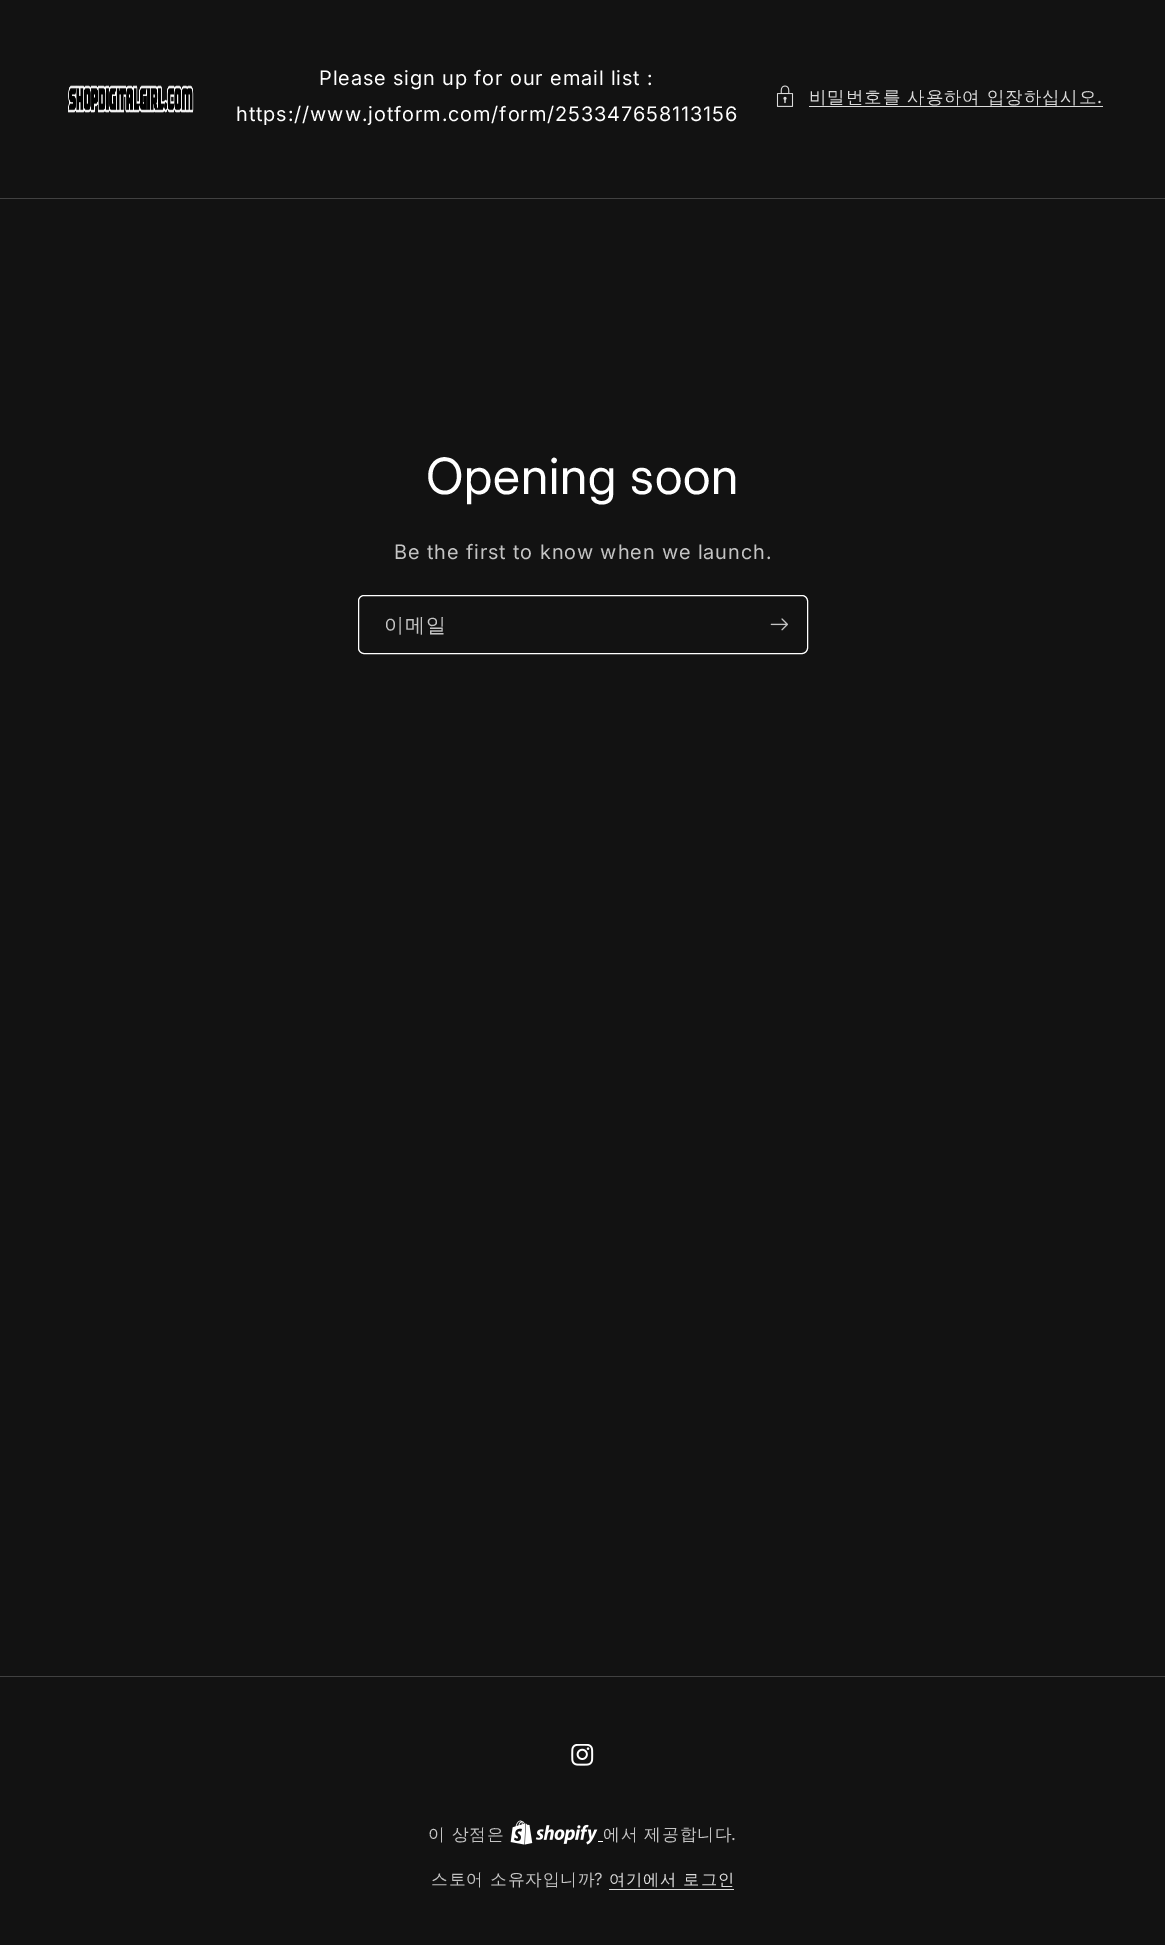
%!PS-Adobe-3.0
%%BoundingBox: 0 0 1165 1945
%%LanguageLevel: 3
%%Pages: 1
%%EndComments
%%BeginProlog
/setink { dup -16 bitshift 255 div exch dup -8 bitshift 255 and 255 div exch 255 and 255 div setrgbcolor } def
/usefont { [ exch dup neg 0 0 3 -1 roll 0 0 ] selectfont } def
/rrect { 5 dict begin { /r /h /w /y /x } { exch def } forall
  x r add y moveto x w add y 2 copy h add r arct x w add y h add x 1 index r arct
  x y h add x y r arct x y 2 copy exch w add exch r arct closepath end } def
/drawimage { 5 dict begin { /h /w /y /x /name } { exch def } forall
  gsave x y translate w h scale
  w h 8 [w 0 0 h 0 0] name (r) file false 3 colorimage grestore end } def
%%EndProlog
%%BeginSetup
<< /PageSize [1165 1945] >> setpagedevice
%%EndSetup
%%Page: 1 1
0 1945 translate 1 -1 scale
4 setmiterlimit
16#121212 setink
0 0 1165 1945 rectfill
(img1.raw) 68 85 126 28 drawimage
/Inter-Regular 20 usefont
16#FFFFFF setink
319 85 moveto 0.9 0 (Please sign up for our email list :) ashow
236 121 moveto 0.9 0 (https://www.jotform.com/form/253347658113156) ashow
(img2.raw) 776 85 18 22 drawimage
/WenQuanYiZenHei-Medium 17.5 usefont
16#DBDBDB setink
809 103 moveto 0.9 0 (비밀번호를 사용하여 입장하십시오) ashow
/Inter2-Regular 17.5 usefont
1097 103 moveto 0.9 0 (.) ashow
809 106 294 1 rectfill
16#414141 setink
0 198 1165 1 rectfill
/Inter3-Regular 50 usefont
16#FFFFFF setink
426 494 moveto 0.75 0 (Opening soon) ashow
/Inter-Regular 20 usefont
16#C4C4C4 setink
394 559 moveto 0.9 0 (Be the first to know when we launch.) ashow
16#FFFFFF setink
358.5 595.5 449 58 5.5 rrect stroke
/WenQuanYiZenHei-Medium 20 usefont
16#C4C4C4 setink
384 632 moveto 1 0 (이메일) ashow
(img3.raw) 770 618 18 13 drawimage
16#414141 setink
0 1676 1165 1 rectfill
(img4.raw) 571 1744 23 22 drawimage
/WenQuanYiZenHei-Medium 16.75 usefont
16#C4C4C4 setink
428 1840 moveto 0.9 0 (이 상점은) ashow
(img5.raw) 510 1820 88 25 drawimage
603 1840 moveto 0.9 0 (에서 제공합니다) ashow
/Inter2-Regular 16.75 usefont
731 1840 moveto 0.9 0 (.) ashow
16#FFFFFF setink
598 1841 5 1 rectfill
/WenQuanYiZenHei-Medium 16.75 usefont
16#C4C4C4 setink
431 1885 moveto 0.9 0 (스토어 소유자입니까) ashow
/Inter2-Regular 16.75 usefont
594 1885 moveto 0.9 0 (?) ashow
/WenQuanYiZenHei-Medium 16.25 usefont
16#DBDBDB setink
609 1885 moveto 0.9 0 (여기에서 로그인) ashow
609 1889 125 1 rectfill
showpage
%%EOF
